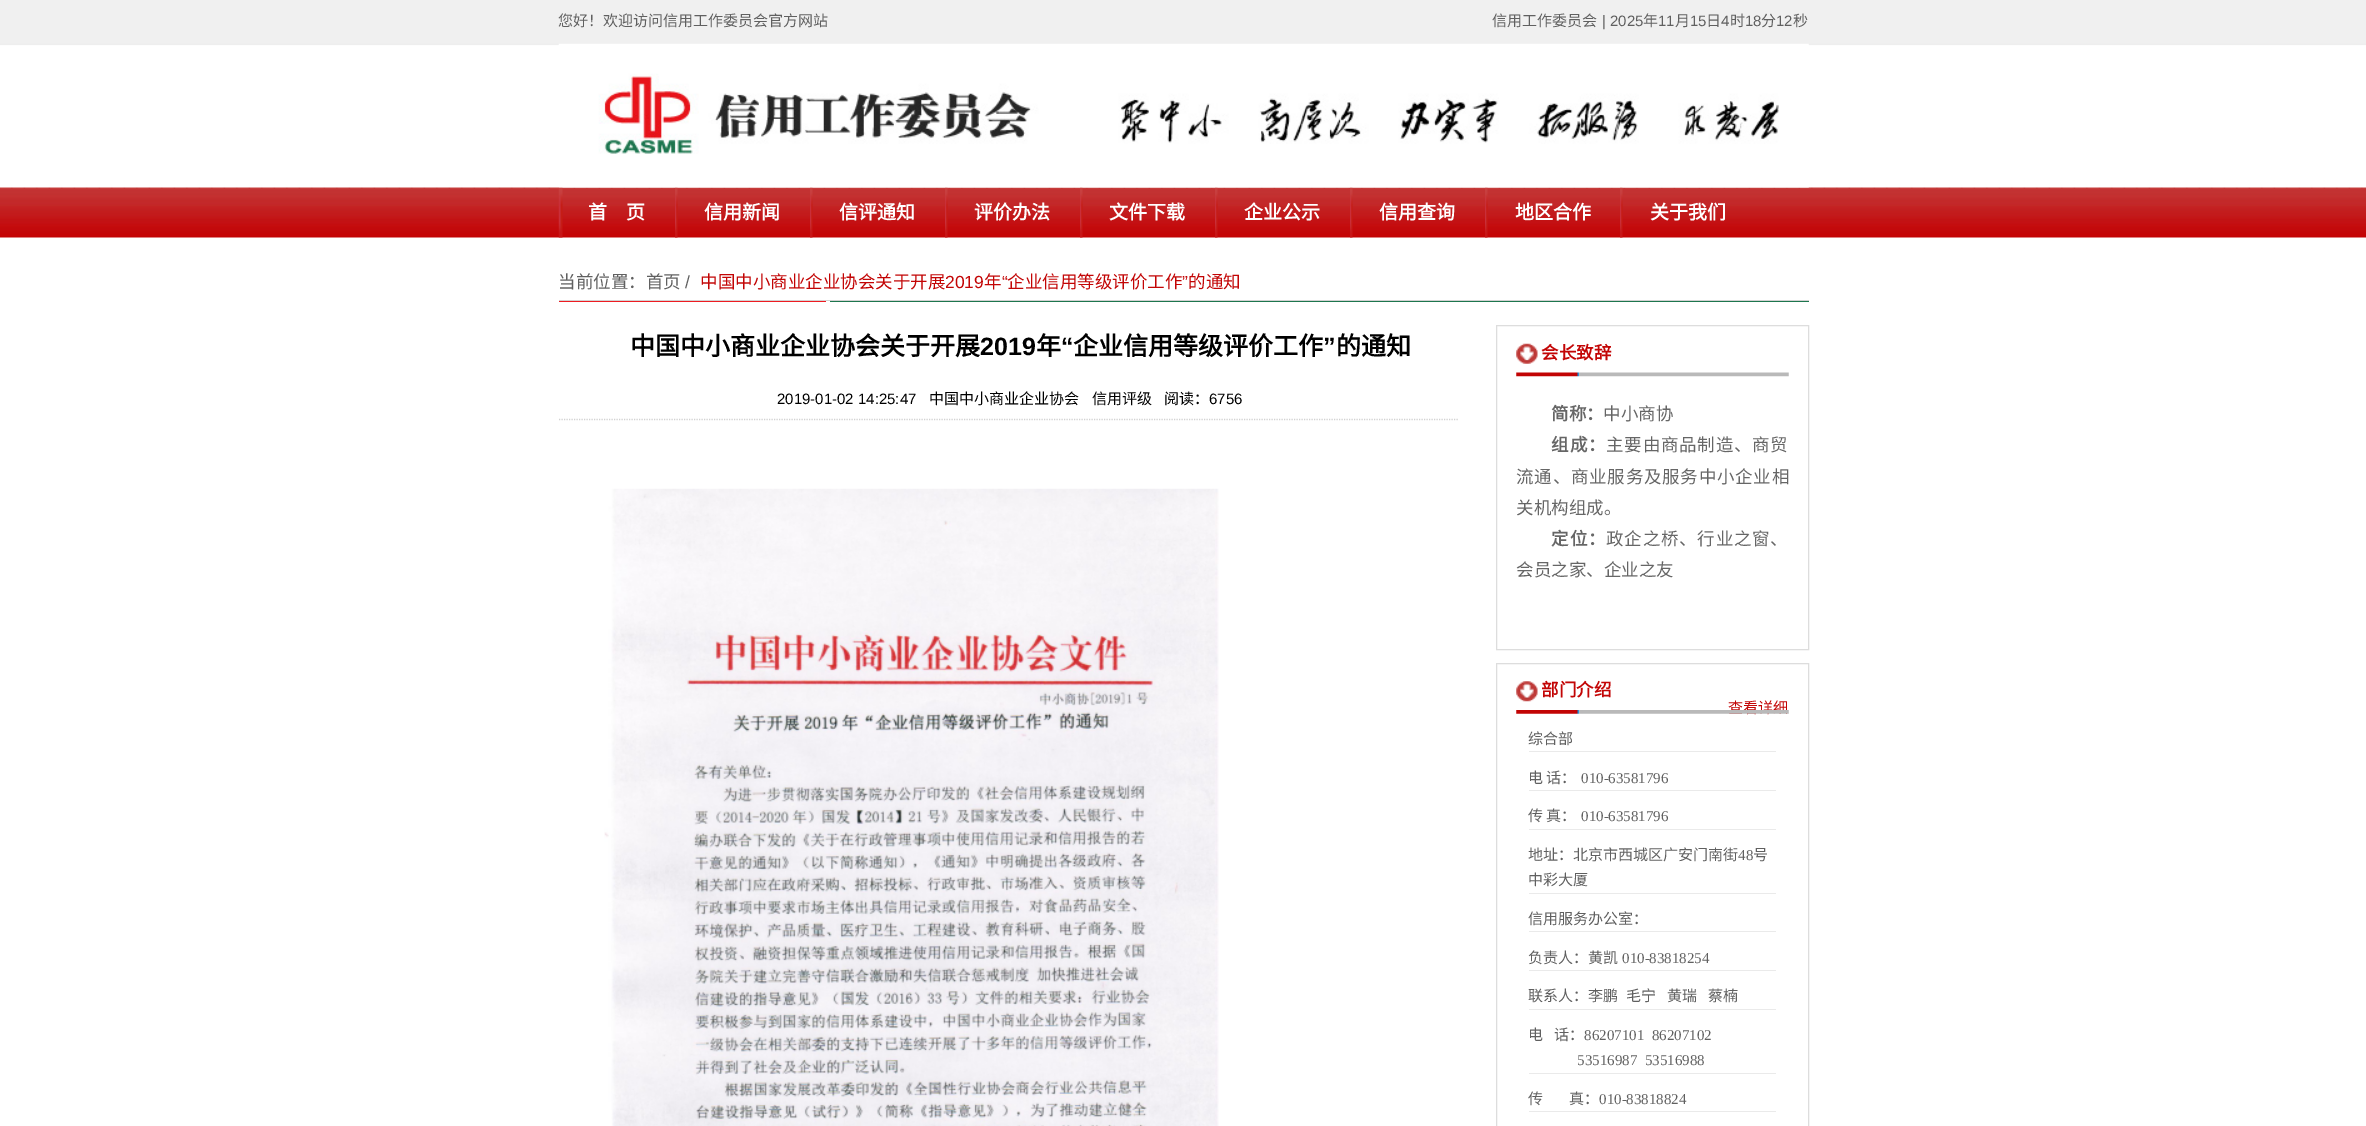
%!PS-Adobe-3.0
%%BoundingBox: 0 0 2366 1126
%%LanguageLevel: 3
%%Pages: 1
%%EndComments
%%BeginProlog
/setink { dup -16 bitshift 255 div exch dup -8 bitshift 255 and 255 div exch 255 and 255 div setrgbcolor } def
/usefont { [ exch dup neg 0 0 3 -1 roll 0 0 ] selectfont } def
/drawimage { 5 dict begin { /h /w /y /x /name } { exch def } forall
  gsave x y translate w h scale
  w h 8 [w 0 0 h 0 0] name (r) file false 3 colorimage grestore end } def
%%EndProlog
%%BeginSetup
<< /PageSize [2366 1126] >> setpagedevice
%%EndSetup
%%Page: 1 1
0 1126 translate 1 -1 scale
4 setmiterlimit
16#FFFFFF setink
0 0 2366 1126 rectfill
(img1.raw) 0 0 2366 238 drawimage
/NotoSansCJKSC-Regular 15 usefont
16#606060 setink
558 26 moveto (您好！欢迎访问信用工作委员会官方网站) show
1492 26 moveto (信用工作委员会) show
/LiberationSans-Regular 15 usefont
1602 26 moveto (| 2025) show
/NotoSansCJKSC-Regular 15 usefont
1643 26 moveto (年) show
/LiberationSans-Regular 15 usefont
1658 26 moveto (11) show
/NotoSansCJKSC-Regular 15 usefont
1675 26 moveto (月) show
/LiberationSans-Regular 15 usefont
1690 26 moveto (15) show
/NotoSansCJKSC-Regular 15 usefont
1706 26 moveto (日) show
/LiberationSans-Regular 15 usefont
1721 26 moveto (4) show
/NotoSansCJKSC-Regular 15 usefont
1730 26 moveto (时) show
/LiberationSans-Regular 15 usefont
1745 26 moveto (18) show
/NotoSansCJKSC-Regular 15 usefont
1761 26 moveto (分) show
/LiberationSans-Regular 15 usefont
1776 26 moveto (12) show
/NotoSansCJKSC-Regular 15 usefont
1793 26 moveto (秒) show
(img3.raw) 558 187 5 51 drawimage
(img4.raw) 675 187 3 51 drawimage
(img5.raw) 810 187 3 51 drawimage
(img6.raw) 945 187 3 51 drawimage
(img7.raw) 1080 187 3 51 drawimage
(img7.raw) 1215 187 3 51 drawimage
(img4.raw) 1350 187 3 51 drawimage
(img5.raw) 1485 187 3 51 drawimage
(img6.raw) 1620 187 3 51 drawimage
(img2.raw) 558 43 1251 145 drawimage
/NotoSansCJKSC-Bold 19 usefont
16#FFFFFF setink
[
    [(首) 588 219]
    [(页) 626 219]
    [(信用新闻) 704 219]
    [(信评通知) 839 219]
    [(评价办法) 974 219]
    [(文件下载) 1109 219]
    [(企业公示) 1244 219]
    [(信用查询) 1379 219]
    [(地区合作) 1515 219]
    [(关于我们) 1650 219]
] { aload pop moveto show } forall
/NotoSansCJKSC-Regular 17.5 usefont
16#606060 setink
558 288 moveto (当前位置：首页) show
/LiberationSans-Regular 17.5 usefont
685 288 moveto (/) show
/NotoSansCJKSC-Regular 17.5 usefont
16#C30505 setink
700 288 moveto (中国中小商业企业协会关于开展) show
/LiberationSans-Regular 17.5 usefont
945 288 moveto (2019) show
/NotoSansCJKSC-Regular 17.5 usefont
984 288 moveto (年) show
/LiberationSans-Regular 17.5 usefont
1002 288 moveto (“) show
/NotoSansCJKSC-Regular 17.5 usefont
1007 288 moveto (企业信用等级评价工作) show
/LiberationSans-Regular 17.5 usefont
1182 288 moveto (”) show
/NotoSansCJKSC-Regular 17.5 usefont
1188 288 moveto (的通知) show
[
    [559 300 1250 1 16#D2D2D2]
    [559 301 267 1 16#EE1B21]
    [830 301 979 1 16#1D764E]
] { aload pop setink rectfill } forall
/NotoSansCJKSC-Bold 25 usefont
16#000000 setink
630 355 moveto (中国中小商业企业协会关于开展) show
/LiberationSans-Bold 25 usefont
980 355 moveto (2019) show
/NotoSansCJKSC-Bold 25 usefont
1036 355 moveto (年) show
/LiberationSans-Bold 25 usefont
1061 355 moveto (“) show
/NotoSansCJKSC-Bold 25 usefont
1073 355 moveto (企业信用等级评价工作) show
/LiberationSans-Bold 25 usefont
1323 355 moveto (”) show
/NotoSansCJKSC-Bold 25 usefont
1336 355 moveto (的通知) show
16#D2D2D2 setink
1.2 setlinewidth
[1.25 1.25] 0 setdash
559 419.5 moveto 1459 419.5 lineto stroke
/LiberationSans-Regular 15 usefont
16#000000 setink
777 404 moveto (2019-01-02 14:25:47) show
/NotoSansCJKSC-Regular 15 usefont
[
    [(中国中小商业企业协会) 929 404]
    [(信用评级) 1092 404]
    [(阅读：) 1164 404]
] { aload pop moveto show } forall
/LiberationSans-Regular 15 usefont
1209 404 moveto (6756) show
(img8.raw) 604 488 615 638 drawimage
16#DDDDDD setink
1 setlinewidth
[] 0 setdash
1496.5 325.5 312 324 rectstroke
(img9.raw) 1516 372 273 5 drawimage
(img10.raw) 1516 343 22 21 drawimage
/NotoSansCJKSC-Bold 17.5 usefont
16#C30505 setink
1541 359 moveto (会长致辞) show
16#666666 setink
1551 420 moveto (简称：) show
/NotoSansCJKSC-Regular 17.5 usefont
1603 420 moveto (中小商协) show
/NotoSansCJKSC-Bold 17.5 usefont
1551 451 moveto 1 0 (组成：) ashow
/NotoSansCJKSC-Regular 17.5 usefont
1606 451 moveto 0.75 0 (主要由商品制造、商贸) ashow
1516 483 moveto 0.75 0 (流通、商业服务及服务中小企业相) ashow
1516 514 moveto (关机构组成。) show
/NotoSansCJKSC-Bold 17.5 usefont
1551 545 moveto 1 0 (定位：) ashow
/NotoSansCJKSC-Regular 17.5 usefont
1606 545 moveto 0.75 0 (政企之桥、行业之窗、) ashow
1516 576 moveto (会员之家、企业之友) show
/NotoSansCJKSC-Regular 15 usefont
16#C30505 setink
1728 713 moveto (查看详细) show
16#DDDDDD setink
1496.5 663.5 312 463 rectstroke
(img11.raw) 1516 710 273 4 drawimage
(img12.raw) 1516 681 22 21 drawimage
/NotoSansCJKSC-Bold 17.5 usefont
16#C30505 setink
1541 696 moveto (部门介绍) show
16#EAEAEA setink
1529 751 247 1 rectfill
/NotoSansCJKSC-Regular 15 usefont
16#606060 setink
1528 744 moveto (综合部) show
16#EAEAEA setink
1529 790 247 1 rectfill
16#606060 setink
1528 783 moveto (电 话：) show
/LiberationSerif-Regular 15 usefont
1581 783 moveto (010-63581796) show
16#EAEAEA setink
1529 829 247 1 rectfill
/NotoSansCJKSC-Regular 15 usefont
16#606060 setink
1528 821 moveto (传 真：) show
/LiberationSerif-Regular 15 usefont
1581 821 moveto (010-63581796) show
16#EAEAEA setink
1529 893 247 1 rectfill
/NotoSansCJKSC-Regular 15 usefont
16#606060 setink
1528 860 moveto (地址：北京市西城区广安门南街) show
/LiberationSerif-Regular 15 usefont
1738 860 moveto (48) show
/NotoSansCJKSC-Regular 15 usefont
1753 860 moveto (号) show
1528 885 moveto (中彩大厦) show
16#EAEAEA setink
1529 931 247 1 rectfill
16#606060 setink
1528 924 moveto (信用服务办公室：) show
16#EAEAEA setink
1529 970 247 1 rectfill
16#606060 setink
1528 963 moveto (负责人：黄凯) show
/LiberationSerif-Regular 15 usefont
1622 963 moveto (010-83818254) show
16#EAEAEA setink
1529 1009 247 1 rectfill
/NotoSansCJKSC-Regular 15 usefont
16#606060 setink
[
    [(联系人：李鹏) 1528 1001]
    [(毛宁) 1626 1001]
    [(黄瑞) 1667 1001]
    [(蔡楠) 1708 1001]
] { aload pop moveto show } forall
16#EAEAEA setink
1529 1073 247 1 rectfill
16#606060 setink
1528 1040 moveto (电) show
1554 1040 moveto (话：) show
/LiberationSerif-Regular 15 usefont
1584 1040 moveto (86207101  86207102) show
1577 1065 moveto (53516987  53516988) show
16#EAEAEA setink
1529 1111 247 1 rectfill
/NotoSansCJKSC-Regular 15 usefont
16#606060 setink
1528 1104 moveto (传) show
1569 1104 moveto (真：) show
/LiberationSerif-Regular 15 usefont
1599 1104 moveto (010-83818824) show
showpage
%%EOF
